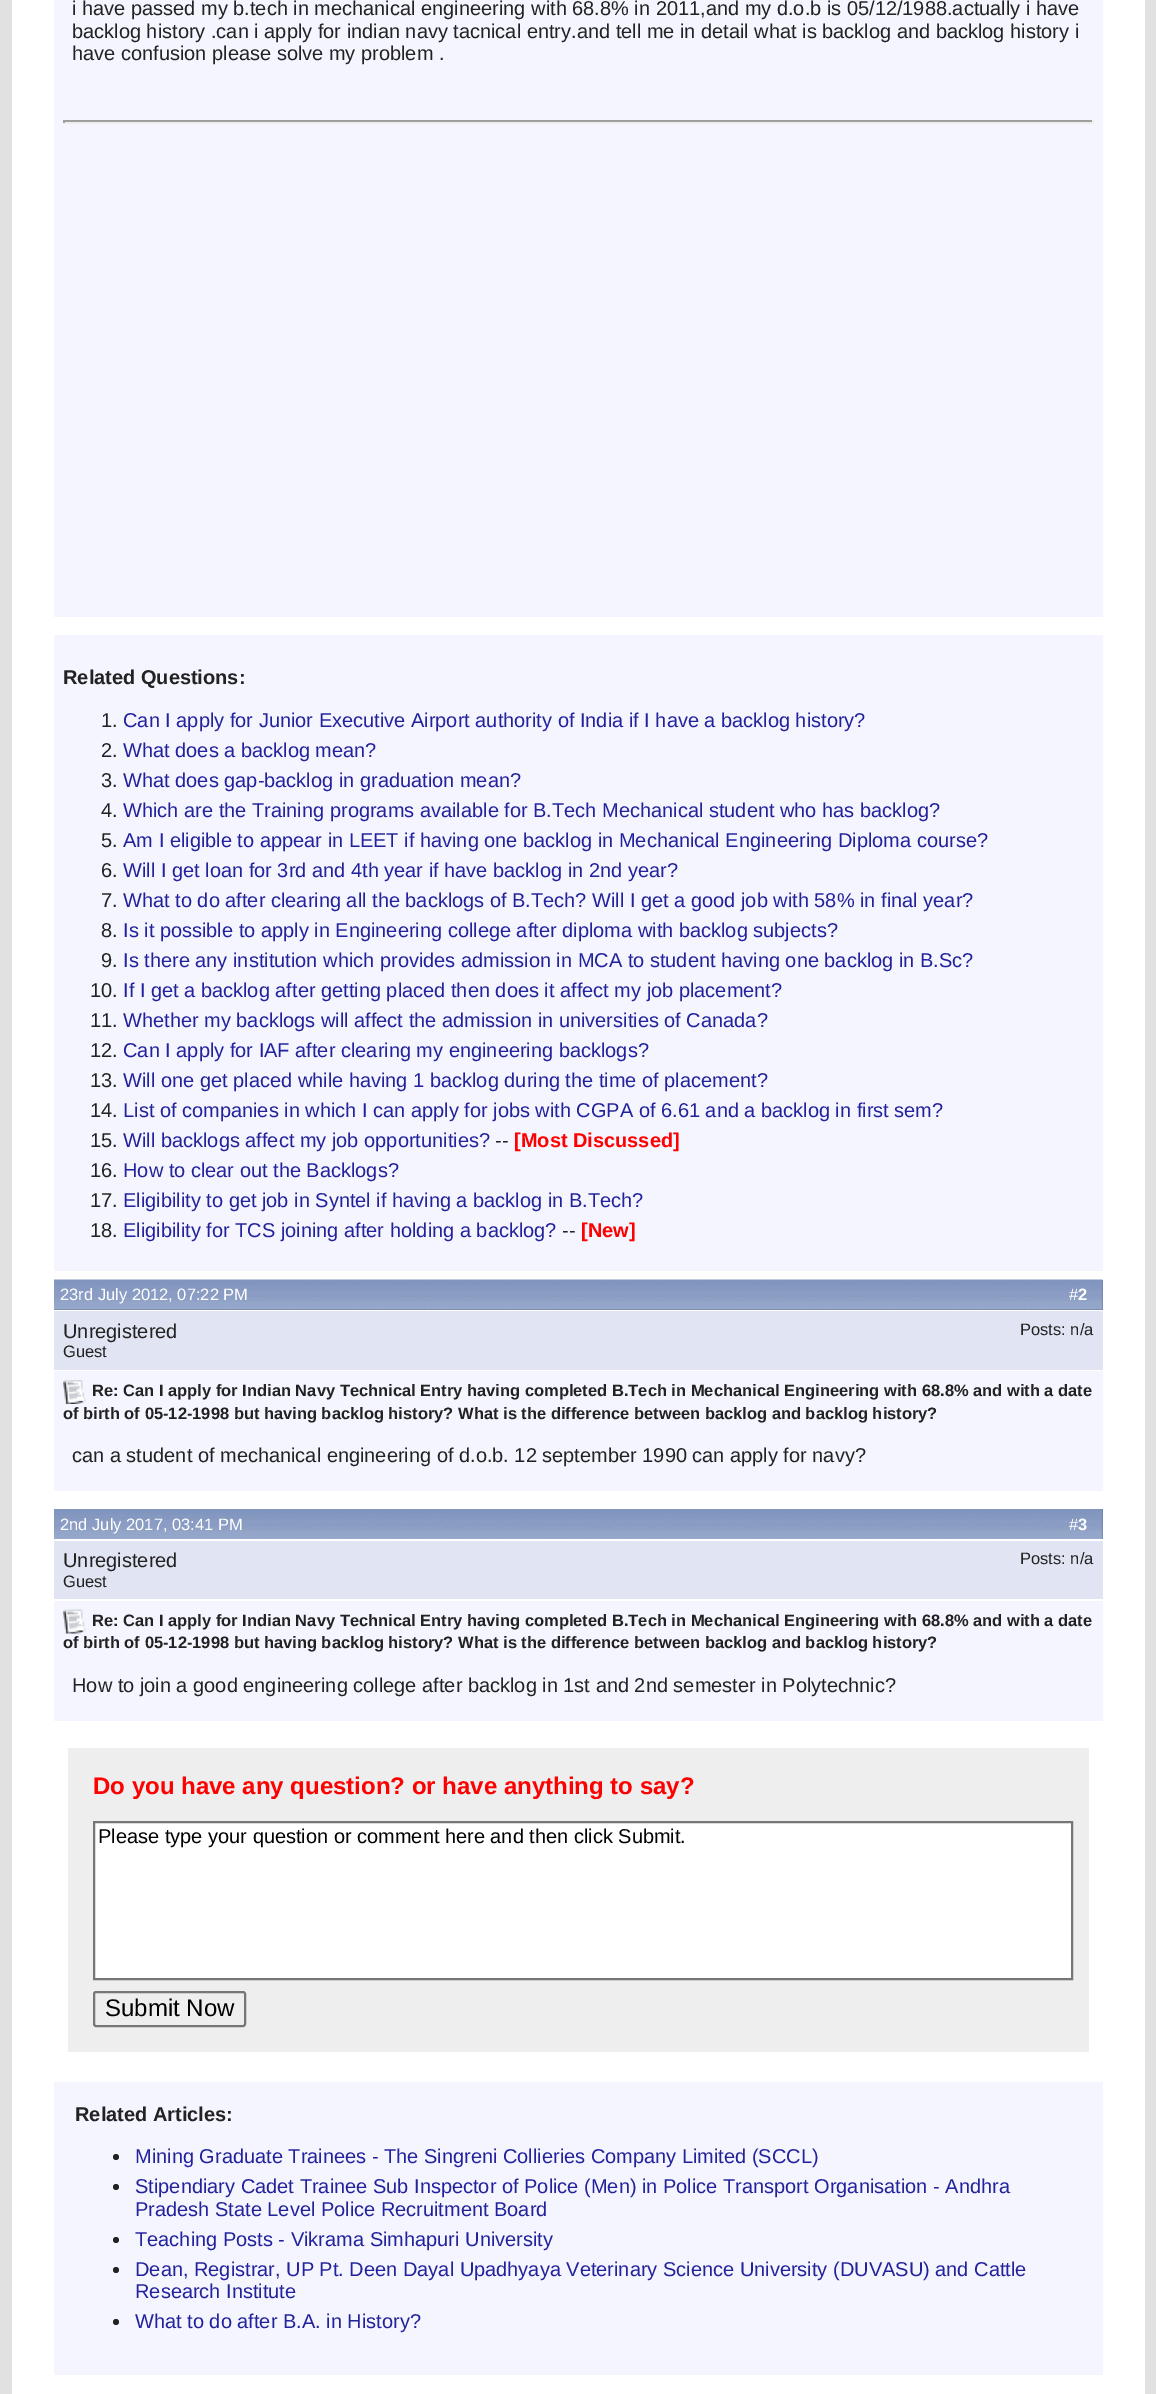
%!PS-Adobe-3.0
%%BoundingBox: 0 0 1156 2394
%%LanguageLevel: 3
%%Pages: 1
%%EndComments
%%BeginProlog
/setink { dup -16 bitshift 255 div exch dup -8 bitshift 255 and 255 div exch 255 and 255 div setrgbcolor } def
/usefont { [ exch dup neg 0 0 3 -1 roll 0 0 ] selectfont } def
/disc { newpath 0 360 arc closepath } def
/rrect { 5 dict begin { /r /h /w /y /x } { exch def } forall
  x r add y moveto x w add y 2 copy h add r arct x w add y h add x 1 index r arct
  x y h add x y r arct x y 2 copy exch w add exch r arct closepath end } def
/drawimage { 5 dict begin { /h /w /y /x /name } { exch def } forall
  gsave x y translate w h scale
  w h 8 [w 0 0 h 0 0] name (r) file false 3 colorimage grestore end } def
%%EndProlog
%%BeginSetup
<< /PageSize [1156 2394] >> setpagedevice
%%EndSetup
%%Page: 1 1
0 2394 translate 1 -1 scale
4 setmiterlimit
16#E1E1E2 setink
0 0 1156 2394 rectfill
16#FFFFFF setink
12 0 1133 2394 rectfill
16#F5F5FF setink
54 0 1049 617 rectfill
/LiberationSans-Regular 20 usefont
16#222222 setink
[
    [(i have passed my b.tech in mechanical engineering with 68.8% in 2011,and my d.o.b is 05/12/1988.actually i have) 72 15]
    [(backlog history .can i apply for indian navy tacnical entry.and tell me in detail what is backlog and backlog history i) 72 38]
    [(have confusion please solve my problem .) 72 60]
] { aload pop moveto show } forall
[
    [63 120 1031 2 16#9F9F9F]
    [1092 120 2 3 16#EEEEEE]
    [63 122 1031 2 16#EEEEEE]
    [63 120 2 3 16#9F9F9F]
    [54 635 1049 636 16#F5F5FF]
] { aload pop setink rectfill } forall
/LiberationSans-Bold 20 usefont
16#222222 setink
63 684 moveto (Related Questions:) show
/LiberationSans-Regular 20 usefont
101 727 moveto (1.) show
16#22229C setink
123 727 moveto (Can I apply for Junior Executive Airport authority of India if I have a backlog history?) show
16#222222 setink
101 757 moveto (2.) show
16#22229C setink
123 757 moveto (What does a backlog mean?) show
16#222222 setink
101 787 moveto (3.) show
16#22229C setink
123 787 moveto (What does gap-backlog in graduation mean?) show
16#222222 setink
101 817 moveto (4.) show
16#22229C setink
123 817 moveto (Which are the Training programs available for B.Tech Mechanical student who has backlog?) show
16#222222 setink
101 847 moveto (5.) show
16#22229C setink
123 847 moveto (Am I eligible to appear in LEET if having one backlog in Mechanical Engineering Diploma course?) show
16#222222 setink
101 877 moveto (6.) show
16#22229C setink
123 877 moveto (Will I get loan for 3rd and 4th year if have backlog in 2nd year?) show
16#222222 setink
101 907 moveto (7.) show
16#22229C setink
123 907 moveto (What to do after clearing all the backlogs of B.Tech? Will I get a good job with 58% in final year?) show
16#222222 setink
101 937 moveto (8.) show
16#22229C setink
123 937 moveto (Is it possible to apply in Engineering college after diploma with backlog subjects?) show
16#222222 setink
101 967 moveto (9.) show
16#22229C setink
123 967 moveto (Is there any institution which provides admission in MCA to student having one backlog in B.Sc?) show
16#222222 setink
90 997 moveto (10.) show
16#22229C setink
123 997 moveto (If I get a backlog after getting placed then does it affect my job placement?) show
16#222222 setink
90 1027 moveto (11.) show
16#22229C setink
123 1027 moveto (Whether my backlogs will affect the admission in universities of Canada?) show
16#222222 setink
90 1057 moveto (12.) show
16#22229C setink
123 1057 moveto (Can I apply for IAF after clearing my engineering backlogs?) show
16#222222 setink
90 1087 moveto (13.) show
16#22229C setink
123 1087 moveto (Will one get placed while having 1 backlog during the time of placement?) show
16#222222 setink
90 1117 moveto (14.) show
16#22229C setink
123 1117 moveto (List of companies in which I can apply for jobs with CGPA of 6.61 and a backlog in first sem?) show
16#222222 setink
90 1147 moveto (15.) show
16#22229C setink
123 1147 moveto (Will backlogs affect my job opportunities?) show
16#222222 setink
495 1147 moveto (--) show
/LiberationSans-Bold 20 usefont
16#FF0000 setink
514 1147 moveto ([Most Discussed]) show
/LiberationSans-Regular 20 usefont
16#222222 setink
90 1177 moveto (16.) show
16#22229C setink
123 1177 moveto (How to clear out the Backlogs?) show
16#222222 setink
90 1207 moveto (17.) show
16#22229C setink
123 1207 moveto (Eligibility to get job in Syntel if having a backlog in B.Tech?) show
16#222222 setink
90 1237 moveto (18.) show
16#22229C setink
123 1237 moveto (Eligibility for TCS joining after holding a backlog?) show
16#222222 setink
562 1237 moveto (--) show
/LiberationSans-Bold 20 usefont
16#FF0000 setink
581 1237 moveto ([New]) show
16#5C7099 setink
54 1280 1049 30 rectfill
(img1.raw) 54 1279 1049 31 drawimage
/LiberationSans-Regular 16.5 usefont
16#FFFFFF setink
60 1300 moveto (23rd July 2012, 07:22 PM) show
1069 1300 moveto (#) show
/LiberationSans-Bold 16.5 usefont
1078 1300 moveto (2) show
16#E1E4F2 setink
54 1311 1049 59 rectfill
/LiberationSans-Regular 20 usefont
16#222222 setink
63 1338 moveto (Unregistered) show
/LiberationSans-Regular 16.5 usefont
63 1357 moveto (Guest) show
1020 1335 moveto (Posts: n/a) show
16#F5F5FF setink
54 1371 1049 120 rectfill
(img2.raw) 63 1380 23 24 drawimage
/LiberationSans-Bold 16.5 usefont
16#222222 setink
92 1396 moveto (Re: Can I apply for Indian Navy Technical Entry having completed B.Tech in Mechanical Engineering with 68.8% and with a date) show
63 1419 moveto (of birth of 05-12-1998 but having backlog history? What is the difference between backlog and backlog history?) show
/LiberationSans-Regular 20 usefont
72 1462 moveto (can a student of mechanical engineering of d.o.b. 12 september 1990 can apply for navy?) show
16#5C7099 setink
1102 1509 1 30 rectfill
(img3.raw) 54 1509 1049 30 drawimage
/LiberationSans-Regular 16.5 usefont
16#FFFFFF setink
60 1530 moveto (2nd July 2017, 03:41 PM) show
1069 1530 moveto (#) show
/LiberationSans-Bold 16.5 usefont
1078 1530 moveto (3) show
16#E1E4F2 setink
54 1541 1049 58 rectfill
/LiberationSans-Regular 20 usefont
16#222222 setink
63 1567 moveto (Unregistered) show
/LiberationSans-Regular 16.5 usefont
63 1587 moveto (Guest) show
1020 1564 moveto (Posts: n/a) show
16#F5F5FF setink
54 1601 1049 120 rectfill
(img4.raw) 63 1609 23 25 drawimage
/LiberationSans-Bold 16.5 usefont
16#222222 setink
92 1626 moveto (Re: Can I apply for Indian Navy Technical Entry having completed B.Tech in Mechanical Engineering with 68.8% and with a date) show
63 1648 moveto (of birth of 05-12-1998 but having backlog history? What is the difference between backlog and backlog history?) show
/LiberationSans-Regular 20 usefont
72 1692 moveto (How to join a good engineering college after backlog in 1st and 2nd semester in Polytechnic?) show
16#EEEEEE setink
68 1748 1021 304 rectfill
/LiberationSans-Bold 24 usefont
16#FF0000 setink
93 1794 moveto (Do you have any question? or have anything to say?) show
16#FFFFFF setink
94 1822 moveto 1072 1822 lineto 1072 1979 lineto 94 1979 lineto closepath gsave fill grestore
16#767676 setink
2 setlinewidth
stroke
/LiberationSans-Regular 20 usefont
16#000000 setink
98 1843 moveto (Please type your question or comment here and then click Submit.) show
16#767676 setink
94 1992 151 34 2 rrect stroke
/LiberationSans-Regular 24 usefont
16#000000 setink
105 2016 moveto (Submit Now) show
16#F5F5FF setink
54 2082 1049 293 rectfill
/LiberationSans-Bold 20 usefont
16#222222 setink
75 2121 moveto (Related Articles:) show
116 2157 3 disc fill
/LiberationSans-Regular 20 usefont
16#22229C setink
135 2163 moveto (Mining Graduate Trainees - The Singreni Collieries Company Limited \(SCCL\)) show
16#222222 setink
116 2187 3 disc fill
16#22229C setink
135 2193 moveto (Stipendiary Cadet Trainee Sub Inspector of Police \(Men\) in Police Transport Organisation - Andhra) show
135 2216 moveto (Pradesh State Level Police Recruitment Board) show
16#222222 setink
116 2240 3 disc fill
16#22229C setink
135 2246 moveto (Teaching Posts - Vikrama Simhapuri University) show
16#222222 setink
116 2270 3 disc fill
16#22229C setink
135 2276 moveto (Dean, Registrar, UP Pt. Deen Dayal Upadhyaya Veterinary Science University \(DUVASU\) and Cattle) show
135 2298 moveto (Research Institute) show
16#222222 setink
116 2322 3 disc fill
16#22229C setink
135 2328 moveto (What to do after B.A. in History?) show
showpage
%%EOF
